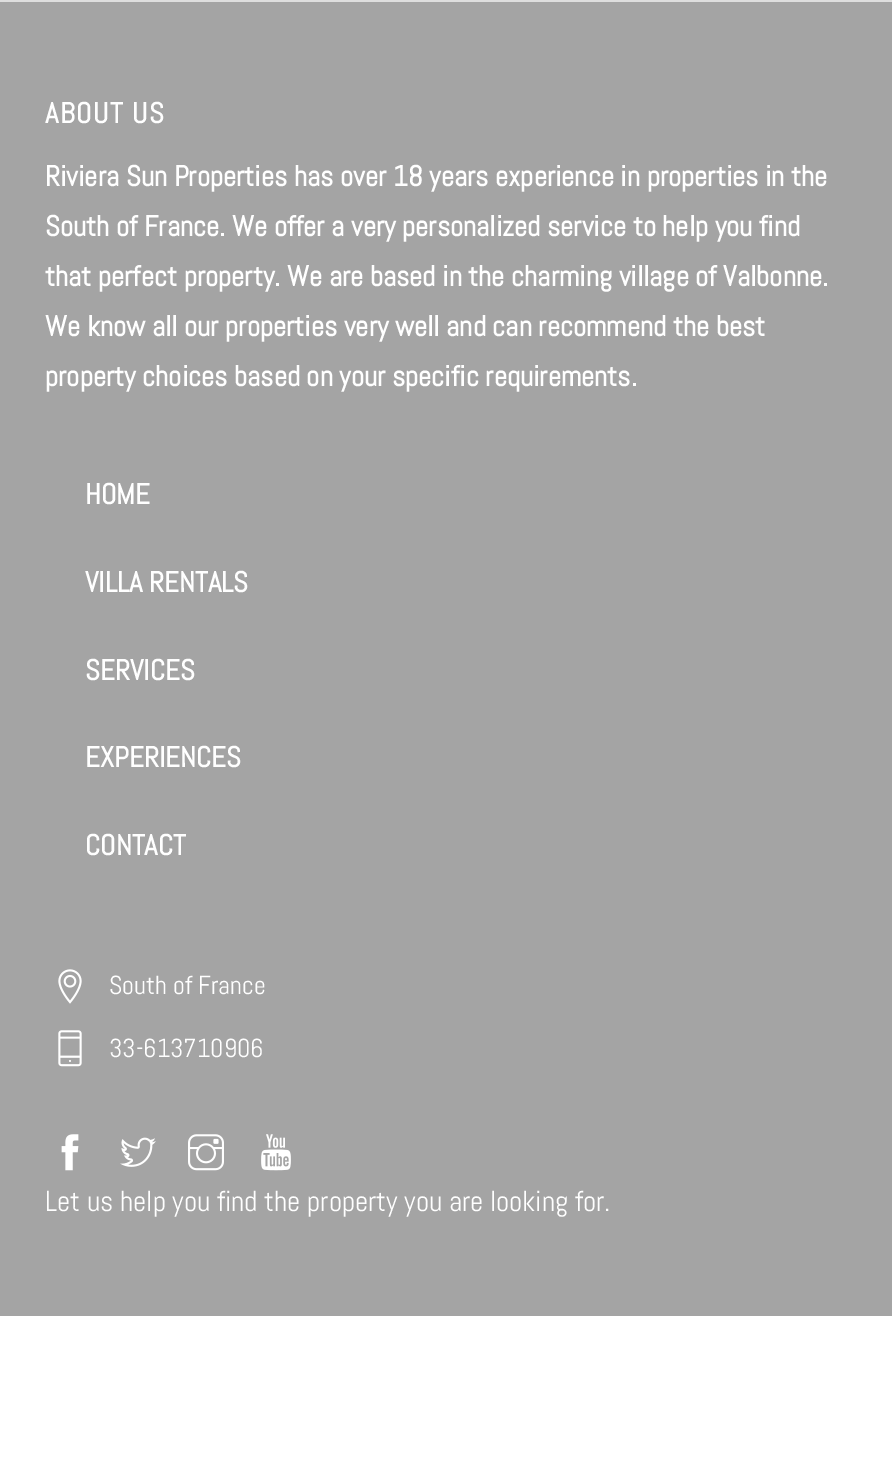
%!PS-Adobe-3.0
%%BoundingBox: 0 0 892 1463
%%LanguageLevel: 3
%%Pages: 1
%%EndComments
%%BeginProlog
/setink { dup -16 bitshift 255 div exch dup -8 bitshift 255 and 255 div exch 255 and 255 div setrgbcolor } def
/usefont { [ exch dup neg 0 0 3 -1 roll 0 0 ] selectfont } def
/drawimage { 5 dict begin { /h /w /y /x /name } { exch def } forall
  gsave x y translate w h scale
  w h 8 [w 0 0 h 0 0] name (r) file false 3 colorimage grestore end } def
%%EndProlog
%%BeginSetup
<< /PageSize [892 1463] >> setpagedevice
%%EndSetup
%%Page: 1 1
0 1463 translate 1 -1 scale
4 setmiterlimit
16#FFFFFF setink
0 0 892 1463 rectfill
16#DEDEDE setink
0 0 892 2 rectfill
16#A4A4A4 setink
0 2 892 1314 rectfill
/Abel-Bold 28.9 usefont
16#FFFFFF setink
45 123 moveto 1.5 0 (ABOUT US) ashow
[
    [(Riviera Sun Properties has over 18 years experience in properties in the) 45 186]
    [(South of France. We offer a very personalized service to help you find) 45 236]
    [(that perfect property. We are based in the charming village of Valbonne.) 45 286]
    [(We know all our properties very well and can recommend the best) 45 336]
    [(property choices based on your specific requirements.) 45 386]
    [(HOME) 85 504]
    [(VILLA RENTALS) 85 592]
    [(SERVICES) 85 680]
    [(EXPERIENCES) 85 767]
    [(CONTACT) 85 855]
] { aload pop moveto show } forall
(img1.raw) 58 969 24 35 drawimage
/Abel-Regular 26 usefont
109 994 moveto (South of France) show
(img2.raw) 58 1030 24 37 drawimage
109 1057 moveto (33-613710906) show
(img3.raw) 61 1134 18 37 drawimage
(img4.raw) 120 1137 36 30 drawimage
(img5.raw) 188 1134 36 37 drawimage
(img6.raw) 261 1134 30 37 drawimage
/Abel-Regular 28.9 usefont
45 1211 moveto (Let us help you find the property you are looking for.) show
showpage
%%EOF
